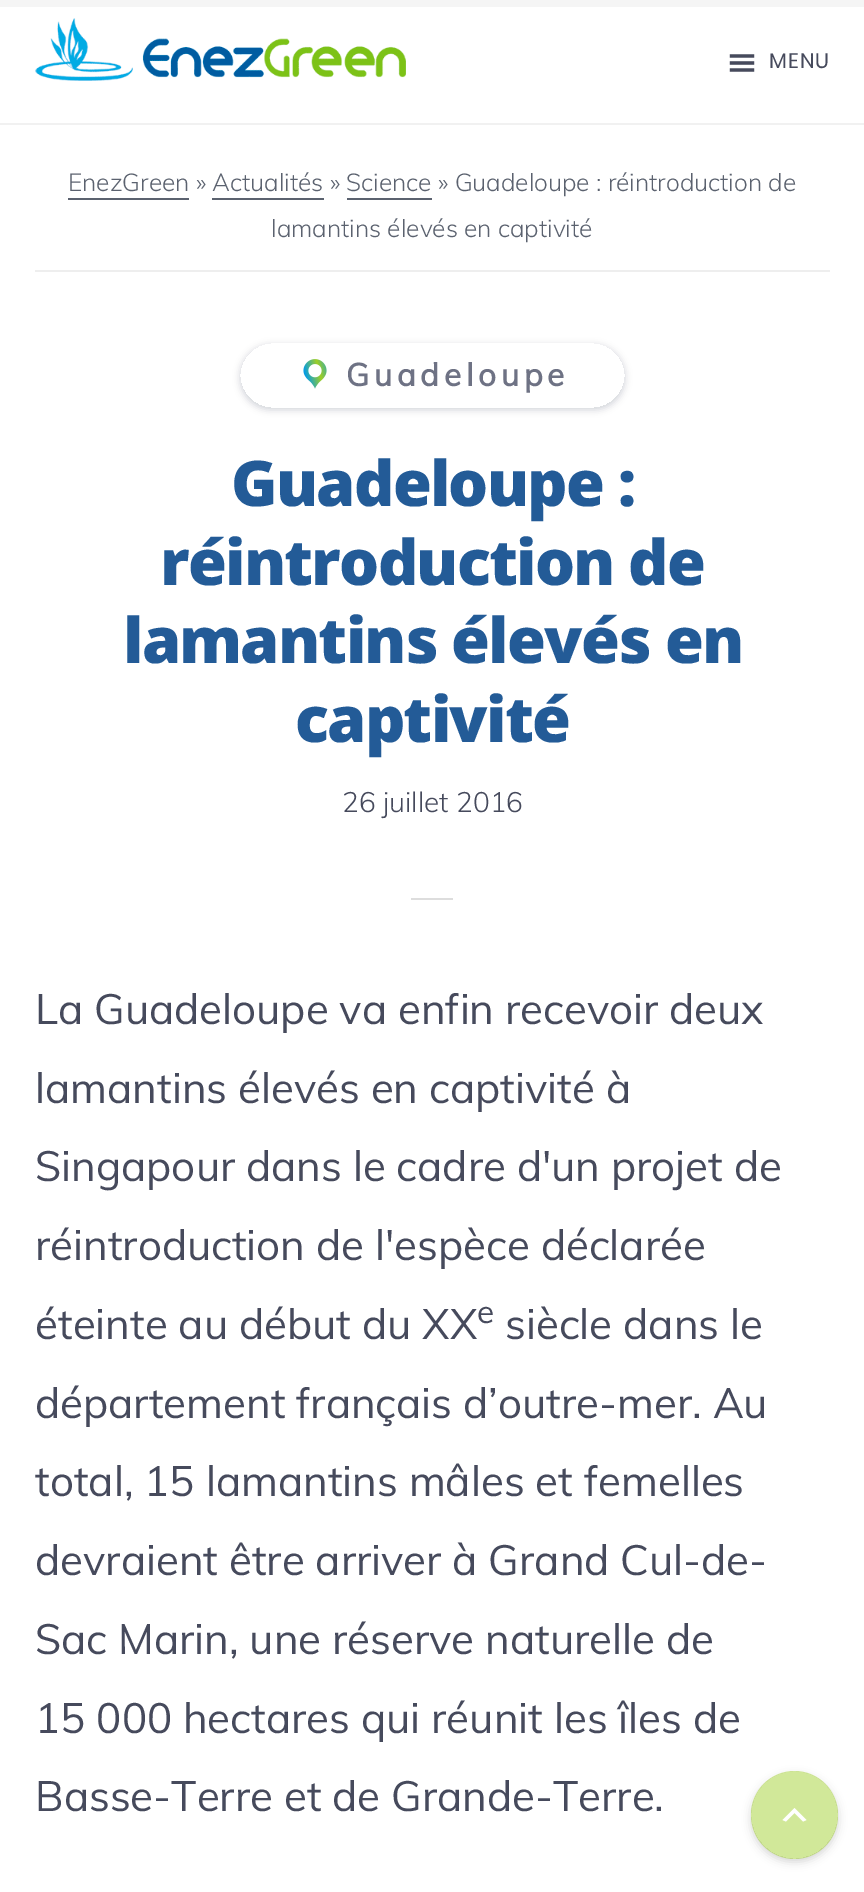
%!PS-Adobe-3.0
%%BoundingBox: 0 0 864 1892
%%LanguageLevel: 3
%%Pages: 1
%%EndComments
%%BeginProlog
/setink { dup -16 bitshift 255 div exch dup -8 bitshift 255 and 255 div exch 255 and 255 div setrgbcolor } def
/usefont { [ exch dup neg 0 0 3 -1 roll 0 0 ] selectfont } def
/setalpha { dup .setfillconstantalpha .setstrokeconstantalpha } def
/rrect { 5 dict begin { /r /h /w /y /x } { exch def } forall
  x r add y moveto x w add y 2 copy h add r arct x w add y h add x 1 index r arct
  x y h add x y r arct x y 2 copy exch w add exch r arct closepath end } def
/softshadow { 12 dict begin { /a /b /q /h /w /y /x } { exch def } forall gsave /was 0 def
  9 -2 -9 { dup b mul 4 div /e exch def 1 sub .425 mul 2.718 exch exp 1 add a .99 .min exch div /now exch def
    1 1 now sub 1 was sub div sub setalpha /was now def
    w h .min e 2 mul add 0 gt { x e sub y e sub w e 2 mul add h e 2 mul add
      q e add b .6 mul add w h .min 2 div e add .min 0 .max rrect fill } if } for grestore end } def
/drawimage { 5 dict begin { /h /w /y /x /name } { exch def } forall
  gsave x y translate w h scale
  w h 8 [w 0 0 h 0 0] name (r) file false 3 colorimage grestore end } def
%%EndProlog
%%BeginSetup
<< /PageSize [864 1892] /PageUsesTransparency true >> setpagedevice
%%EndSetup
%%Page: 1 1
0 .pushpdf14devicefilter
0 1892 translate 1 -1 scale
4 setmiterlimit
16#FFFFFF setink
0 0 864 1892 rectfill
16#F1F1F1 setink
0 123 864 2 rectfill
16#F5F5F5 setink
0 0 864 7 rectfill
(img1.raw) 35 18 371 63 drawimage
(img2.raw) 729 54 26 18 drawimage
/Poppins-Regular 21 usefont
16#464A5C setink
769 68 moveto 1 0 (MENU) ashow
16#EEEEEE setink
35 270 795 2 rectfill
/Muli-Light 24.5 usefont
16#5B626F setink
68 191 moveto (EnezGreen » Actualités » Science » Guadeloupe : réintroduction de) show
[
    [68 198 121 2 16#5B626F]
    [212 198 112 2 16#5B626F]
    [347 198 85 2 16#5B626F]
] { aload pop setink rectfill } forall
271 237 moveto (lamantins élevés en captivité) show
gsave
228 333 moveto 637 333 lineto 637 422 lineto 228 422 lineto closepath 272.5 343 moveto 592.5 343 lineto 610.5 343 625 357.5 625 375.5 curveto 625 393.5 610.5 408 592.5 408 curveto 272.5 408 lineto 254.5 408 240 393.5 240 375.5 curveto 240 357.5 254.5 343 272.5 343 curveto closepath eoclip newpath
16#5D6375 setink
240 345 385 65 32.5 3.5 0.27 softshadow
grestore
(img3.raw) 303 359 24 30 drawimage
/Muli-Bold 31.5 usefont
16#6E7284 setink
346 386 moveto 4.75 0 (Guadeloupe) ashow
/OpenSans-ExtraBold 63 usefont
16#235B97 setink
231 506 moveto -1.75 0 (Guadeloupe :) ashow
160 585 moveto -1.75 0 (réintroduction de) ashow
123 663 moveto -1.75 0 (lamantins élevés en) ashow
295 742 moveto -1.75 0 (captivité) ashow
/Muli-Light 28 usefont
16#464A5C setink
342 812 moveto (26 juillet 2016) show
16#DDDDDD setink
411 898 42 2 rectfill
/Muli-Regular 42 usefont
16#464A5C setink
[
    [(La Guadeloupe va enfin recevoir deux) 35 1024]
    [(lamantins élevés en captivité à) 35 1103]
    [(Singapour dans le cadre d'un projet de) 35 1181]
    [(réintroduction de l'espèce déclarée) 35 1260]
    [(éteinte au début du XX) 35 1339]
] { aload pop moveto show } forall
/Muli-Regular 31.5 usefont
477 1323 moveto (e) show
/Muli-Regular 42 usefont
[
    [(siècle dans le) 505 1339]
    [(département français d’outre-mer. Au) 35 1418]
    [(total, 15 lamantins mâles et femelles) 35 1496]
    [(devraient être arriver à Grand Cul-de-) 35 1575]
    [(Sac Marin, une réserve naturelle de) 35 1654]
    [(15 000 hectares qui réunit les îles de) 35 1733]
    [(Basse-Terre et de Grande-Terre.) 35 1811]
] { aload pop moveto show } forall
gsave
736 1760 moveto 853 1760 lineto 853 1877 lineto 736 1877 lineto closepath 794.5 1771 moveto 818.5 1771 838 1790.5 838 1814.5 curveto 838 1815.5 lineto 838 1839.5 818.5 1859 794.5 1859 curveto 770.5 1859 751 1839.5 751 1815.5 curveto 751 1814.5 lineto 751 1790.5 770.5 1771 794.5 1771 curveto closepath eoclip newpath
16#000000 setink
751 1775 87 87 43.5 4.5 0.16 softshadow
grestore
0.47 setalpha
16#9ECE26 setink
751 1771 87 88 43.5 rrect fill
1 setalpha
16#FFFFFF setink
803 1821.5 moveto 794.5 1813 lineto 786 1821.5 lineto 782.5 1820 lineto 794.5 1808 lineto 806.5 1820 lineto closepath fill
.poppdf14devicefilter showpage
%%EOF
